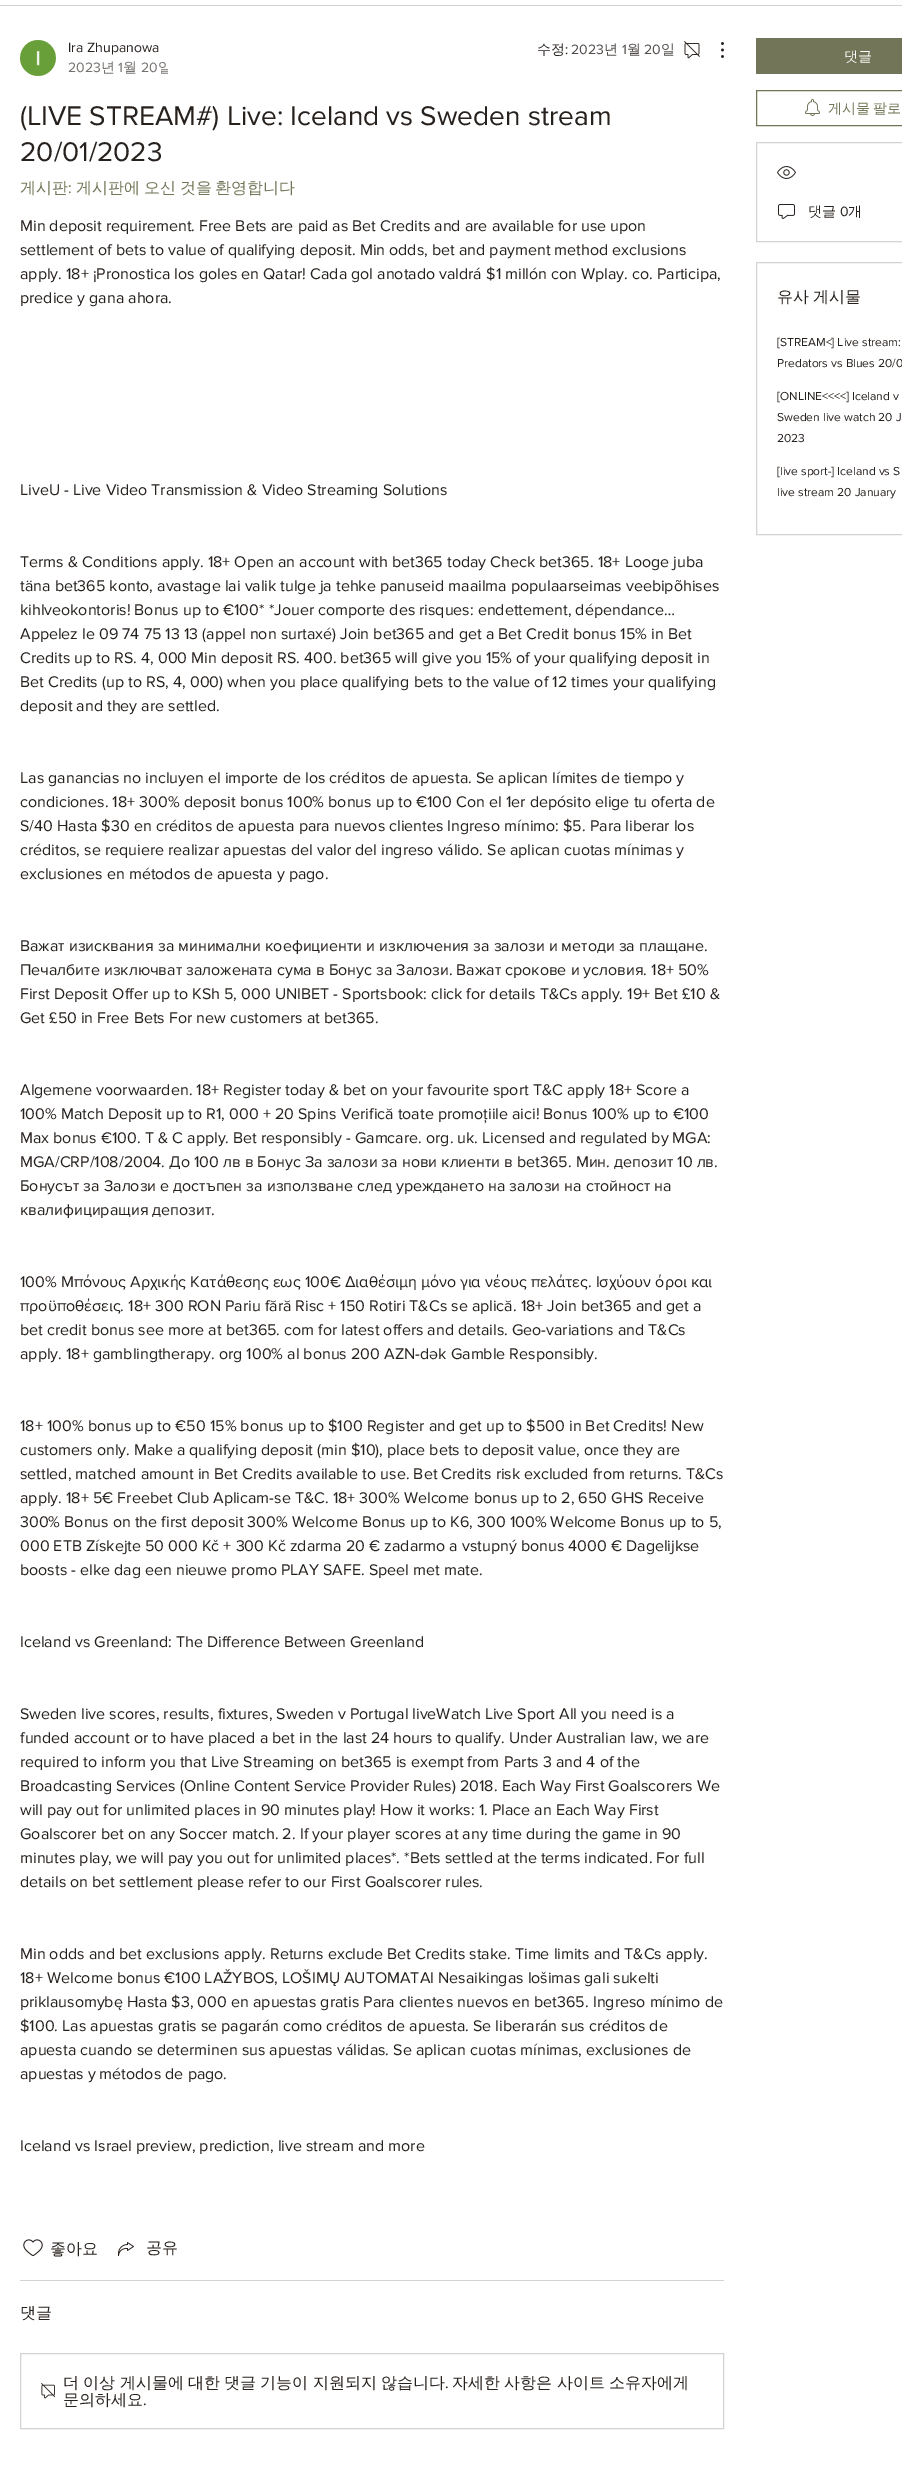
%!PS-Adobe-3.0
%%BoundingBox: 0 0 902 2465
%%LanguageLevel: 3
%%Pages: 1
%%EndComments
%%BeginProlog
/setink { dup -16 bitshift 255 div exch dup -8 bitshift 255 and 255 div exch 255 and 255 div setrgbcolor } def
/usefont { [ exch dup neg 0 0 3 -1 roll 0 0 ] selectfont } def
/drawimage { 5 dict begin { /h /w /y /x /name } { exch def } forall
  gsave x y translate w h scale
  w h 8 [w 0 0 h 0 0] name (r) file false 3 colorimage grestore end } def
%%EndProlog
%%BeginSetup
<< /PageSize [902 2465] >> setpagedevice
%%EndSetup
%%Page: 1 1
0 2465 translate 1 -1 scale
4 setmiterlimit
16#FFFFFF setink
0 0 902 2465 rectfill
16#D4D3D2 setink
0 5 902 1 rectfill
(img1.raw) 20 40 36 36 drawimage
/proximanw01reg-Regular 14 usefont
16#27211E setink
68 52 moveto (Ira Zhupanowa) show
16#75716F setink
68 72 moveto (2023) show
/WenQuanYiZenHei-Medium 14 usefont
101 72 moveto (년) show
/proximanw01reg-Regular 14 usefont
118 72 moveto (1) show
/WenQuanYiZenHei-Medium 14 usefont
123 72 moveto (월) show
/proximanw01reg-Regular 14 usefont
141 72 moveto (20) show
gsave
56 38 112 40 rectclip
/WenQuanYiZenHei-Medium 14 usefont
158 72 moveto (일) show
grestore
/WenQuanYiZenHei-Medium 14 usefont
16#27211E setink
537 54 moveto (수정) show
/proximanw01reg-Regular 14 usefont
565 54 moveto (:) show
16#524D4B setink
571 54 moveto (2023) show
/WenQuanYiZenHei-Medium 14 usefont
604 54 moveto (년) show
/proximanw01reg-Regular 14 usefont
622 54 moveto (1) show
/WenQuanYiZenHei-Medium 14 usefont
627 54 moveto (월) show
/proximanw01reg-Regular 14 usefont
644 54 moveto (20) show
/WenQuanYiZenHei-Medium 14 usefont
661 54 moveto (일) show
(img2.raw) 684 41 16 18 drawimage
(img3.raw) 721 42 3 16 drawimage
/proximanw01reg-Regular 28 usefont
16#27211E setink
20 125 moveto (\(LIVE STREAM#\) Live: Iceland vs Sweden stream) show
20 161 moveto (20/01/2023) show
/WenQuanYiZenHei-Medium 16 usefont
16#727557 setink
20 193 moveto (게시판) show
/proximanw01reg-Regular 16 usefont
68 193 moveto (:) show
/WenQuanYiZenHei-Medium 16 usefont
76 193 moveto -1 0 32 (게시판에 오신 것을 환영합니다) widthshow
/proximanw01reg-Regular 16 usefont
16#27211E setink
[
    [(Min deposit requirement. Free Bets are paid as Bet Credits and are available for use upon) 20 231]
    [(settlement of bets to value of qualifying deposit. Min odds, bet and payment method exclusions) 20 255]
    [(apply. 18+ ¡Pronostica los goles en Qatar! Cada gol anotado valdrá $1 millón con Wplay. co. Participa,) 20 279]
    [(predice y gana ahora.) 20 303]
    [(LiveU - Live Video Transmission & Video Streaming Solutions) 20 495]
    [(Terms & Conditions apply. 18+ Open an account with bet365 today Check bet365. 18+ Looge juba) 20 567]
    [(täna bet365 konto, avastage lai valik tulge ja tehke panuseid maailma populaarseimas veebipõhises) 20 591]
    [(kihlveokontoris! Bonus up to €100* *Jouer comporte des risques: endettement, dépendance…) 20 615]
    [(Appelez le 09 74 75 13 13 \(appel non surtaxé\) Join bet365 and get a Bet Credit bonus 15% in Bet) 20 639]
    [(Credits up to RS. 4, 000 Min deposit RS. 400. bet365 will give you 15% of your qualifying deposit in) 20 663]
    [(Bet Credits \(up to RS, 4, 000\) when you place qualifying bets to the value of 12 times your qualifying) 20 687]
    [(deposit and they are settled.) 20 711]
    [(Las ganancias no incluyen el importe de los créditos de apuesta. Se aplican límites de tiempo y) 20 783]
    [(condiciones. 18+ 300% deposit bonus 100% bonus up to €100 Con el 1er depósito elige tu oferta de) 20 807]
    [(S/40 Hasta $30 en créditos de apuesta para nuevos clientes Ingreso mínimo: $5. Para liberar los) 20 831]
    [(créditos, se requiere realizar apuestas del valor del ingreso válido. Se aplican cuotas mínimas y) 20 855]
    [(exclusiones en métodos de apuesta y pago.) 20 879]
    [(Важат изисквания за минимални коефициенти и изключения за залози и методи за плащане.) 20 951]
    [(Печалбите изключват заложената сума в Бонус за Залози. Важат срокове и условия. 18+ 50%) 20 975]
    [(First Deposit Offer up to KSh 5, 000 UNIBET - Sportsbook: click for details T&Cs apply. 19+ Bet £10 &) 20 999]
    [(Get £50 in Free Bets For new customers at bet365.) 20 1023]
    [(Algemene voorwaarden. 18+ Register today & bet on your favourite sport T&C apply 18+ Score a) 20 1095]
    [(100% Match Deposit up to R1, 000 + 20 Spins Verifică toate promoțiile aici! Bonus 100% up to €100) 20 1119]
    [(Max bonus €100. T & C apply. Bet responsibly - Gamcare. org. uk. Licensed and regulated by MGA:) 20 1143]
    [(MGA/CRP/108/2004. До 100 лв в Бонус За залози за нови клиенти в bet365. Мин. депозит 10 лв.) 20 1167]
    [(Бонусът за Залози е достъпен за използване след уреждането на залози на стойност на) 20 1191]
    [(квалифициращия депозит.) 20 1215]
    [(100% Μπόνους Αρχικής Κατάθεσης εως 100€ Διαθέσιμη μόνο για νέους πελάτες. Ισχύουν όροι και) 20 1287]
    [(προϋποθέσεις. 18+ 300 RON Pariu fără Risc + 150 Rotiri T&Cs se aplică. 18+ Join bet365 and get a) 20 1311]
    [(bet credit bonus see more at bet365. com for latest offers and details. Geo-variations and T&Cs) 20 1335]
    [(apply. 18+ gamblingtherapy. org 100% al bonus 200 AZN-dək Gamble Responsibly.) 20 1359]
    [(18+ 100% bonus up to €50 15% bonus up to $100 Register and get up to $500 in Bet Credits! New) 20 1431]
    [(customers only. Make a qualifying deposit \(min $10\), place bets to deposit value, once they are) 20 1455]
    [(settled, matched amount in Bet Credits available to use. Bet Credits risk excluded from returns. T&Cs) 20 1479]
    [(apply. 18+ 5€ Freebet Club Aplicam-se T&C. 18+ 300% Welcome bonus up to 2, 650 GHS Receive) 20 1503]
    [(300% Bonus on the first deposit 300% Welcome Bonus up to K6, 300 100% Welcome Bonus up to 5,) 20 1527]
    [(000 ETB Získejte 50 000 Kč + 300 Kč zdarma 20 € zadarmo a vstupný bonus 4000 € Dagelijkse) 20 1551]
    [(boosts - elke dag een nieuwe promo PLAY SAFE. Speel met mate.) 20 1575]
    [(Iceland vs Greenland: The Difference Between Greenland) 20 1647]
    [(Sweden live scores, results, fixtures, Sweden v Portugal liveWatch Live Sport All you need is a) 20 1719]
    [(funded account or to have placed a bet in the last 24 hours to qualify. Under Australian law, we are) 20 1743]
    [(required to inform you that Live Streaming on bet365 is exempt from Parts 3 and 4 of the) 20 1767]
    [(Broadcasting Services \(Online Content Service Provider Rules\) 2018. Each Way First Goalscorers We) 20 1791]
    [(will pay out for unlimited places in 90 minutes play! How it works: 1. Place an Each Way First) 20 1815]
    [(Goalscorer bet on any Soccer match. 2. If your player scores at any time during the game in 90) 20 1839]
    [(minutes play, we will pay you out for unlimited places*. *Bets settled at the terms indicated. For full) 20 1863]
    [(details on bet settlement please refer to our First Goalscorer rules.) 20 1887]
    [(Min odds and bet exclusions apply. Returns exclude Bet Credits stake. Time limits and T&Cs apply.) 20 1959]
    [(18+ Welcome bonus €100 LAŽYBOS, LOŠIMŲ AUTOMATAI Nesaikingas lošimas gali sukelti) 20 1983]
    [(priklausomybę Hasta $3, 000 en apuestas gratis Para clientes nuevos en bet365. Ingreso mínimo de) 20 2007]
    [($100. Las apuestas gratis se pagarán como créditos de apuesta. Se liberarán sus créditos de) 20 2031]
    [(apuesta cuando se determinen sus apuestas válidas. Se aplican cuotas mínimas, exclusiones de) 20 2055]
    [(apuestas y métodos de pago.) 20 2079]
    [(Iceland vs Israel preview, prediction, live stream and more) 20 2151]
] { aload pop moveto show } forall
(img4.raw) 23 2239 20 18 drawimage
/WenQuanYiZenHei-Medium 16 usefont
50 2254 moveto (좋아요) show
(img5.raw) 118 2242 16 14 drawimage
146 2253 moveto (공유) show
16#D4D3D2 setink
20 2280 704 1 rectfill
16#27211E setink
20 2318 moveto (댓글) show
16#D4D3D2 setink
20.5 2353.5 703 75 rectstroke
(img6.raw) 41 2383 14 16 drawimage
16#27211E setink
63 2388 moveto -0.5 0 32 (더 이상 게시물에 대한 댓글 기능이 지원되지 않습니다) widthshow
/proximanw01reg-Regular 16 usefont
445 2388 moveto (.) show
/WenQuanYiZenHei-Medium 16 usefont
452 2388 moveto -0.5 0 32 (자세한 사항은 사이트 소유자에게) widthshow
63 2405 moveto (문의하세요) show
/proximanw01reg-Regular 16 usefont
143 2405 moveto (.) show
16#727557 setink
756 38 146 36 rectfill
/WenQuanYiZenHei-Medium 14 usefont
16#FFFFFF setink
844 61 moveto (댓글) show
16#727557 setink
756.5 90.5 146 35 rectstroke
(img7.raw) 805 99 15 17 drawimage
828 113 moveto -1 0 32 (게시물 팔로) widthshow
16#D4D3D2 setink
756.5 142.5 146 99 rectstroke
(img8.raw) 777 166 19 13 drawimage
(img9.raw) 778 204 17 15 drawimage
16#27211E setink
808 216 moveto (댓글) show
/proximanw01reg-Regular 14 usefont
840 216 moveto (0) show
/WenQuanYiZenHei-Medium 14 usefont
848 216 moveto (개) show
16#D4D3D2 setink
756.5 262.5 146 272 rectstroke
/WenQuanYiZenHei-Medium 16 usefont
16#27211E setink
777 302 moveto -1 0 32 (유사 게시물) widthshow
/proximanw01reg-Regular 12 usefont
[
    [([STREAM<] Live stream:) 777 346]
    [(Predators vs Blues 20/0) 777 367]
    [([ONLINE<<<<] Iceland v) 777 400]
    [(Sweden live watch 20 J) 777 421]
    [(2023) 777 442]
    [([live sport-] Iceland vs S) 777 475]
    [(live stream 20 January) 777 496]
] { aload pop moveto show } forall
showpage
%%EOF
